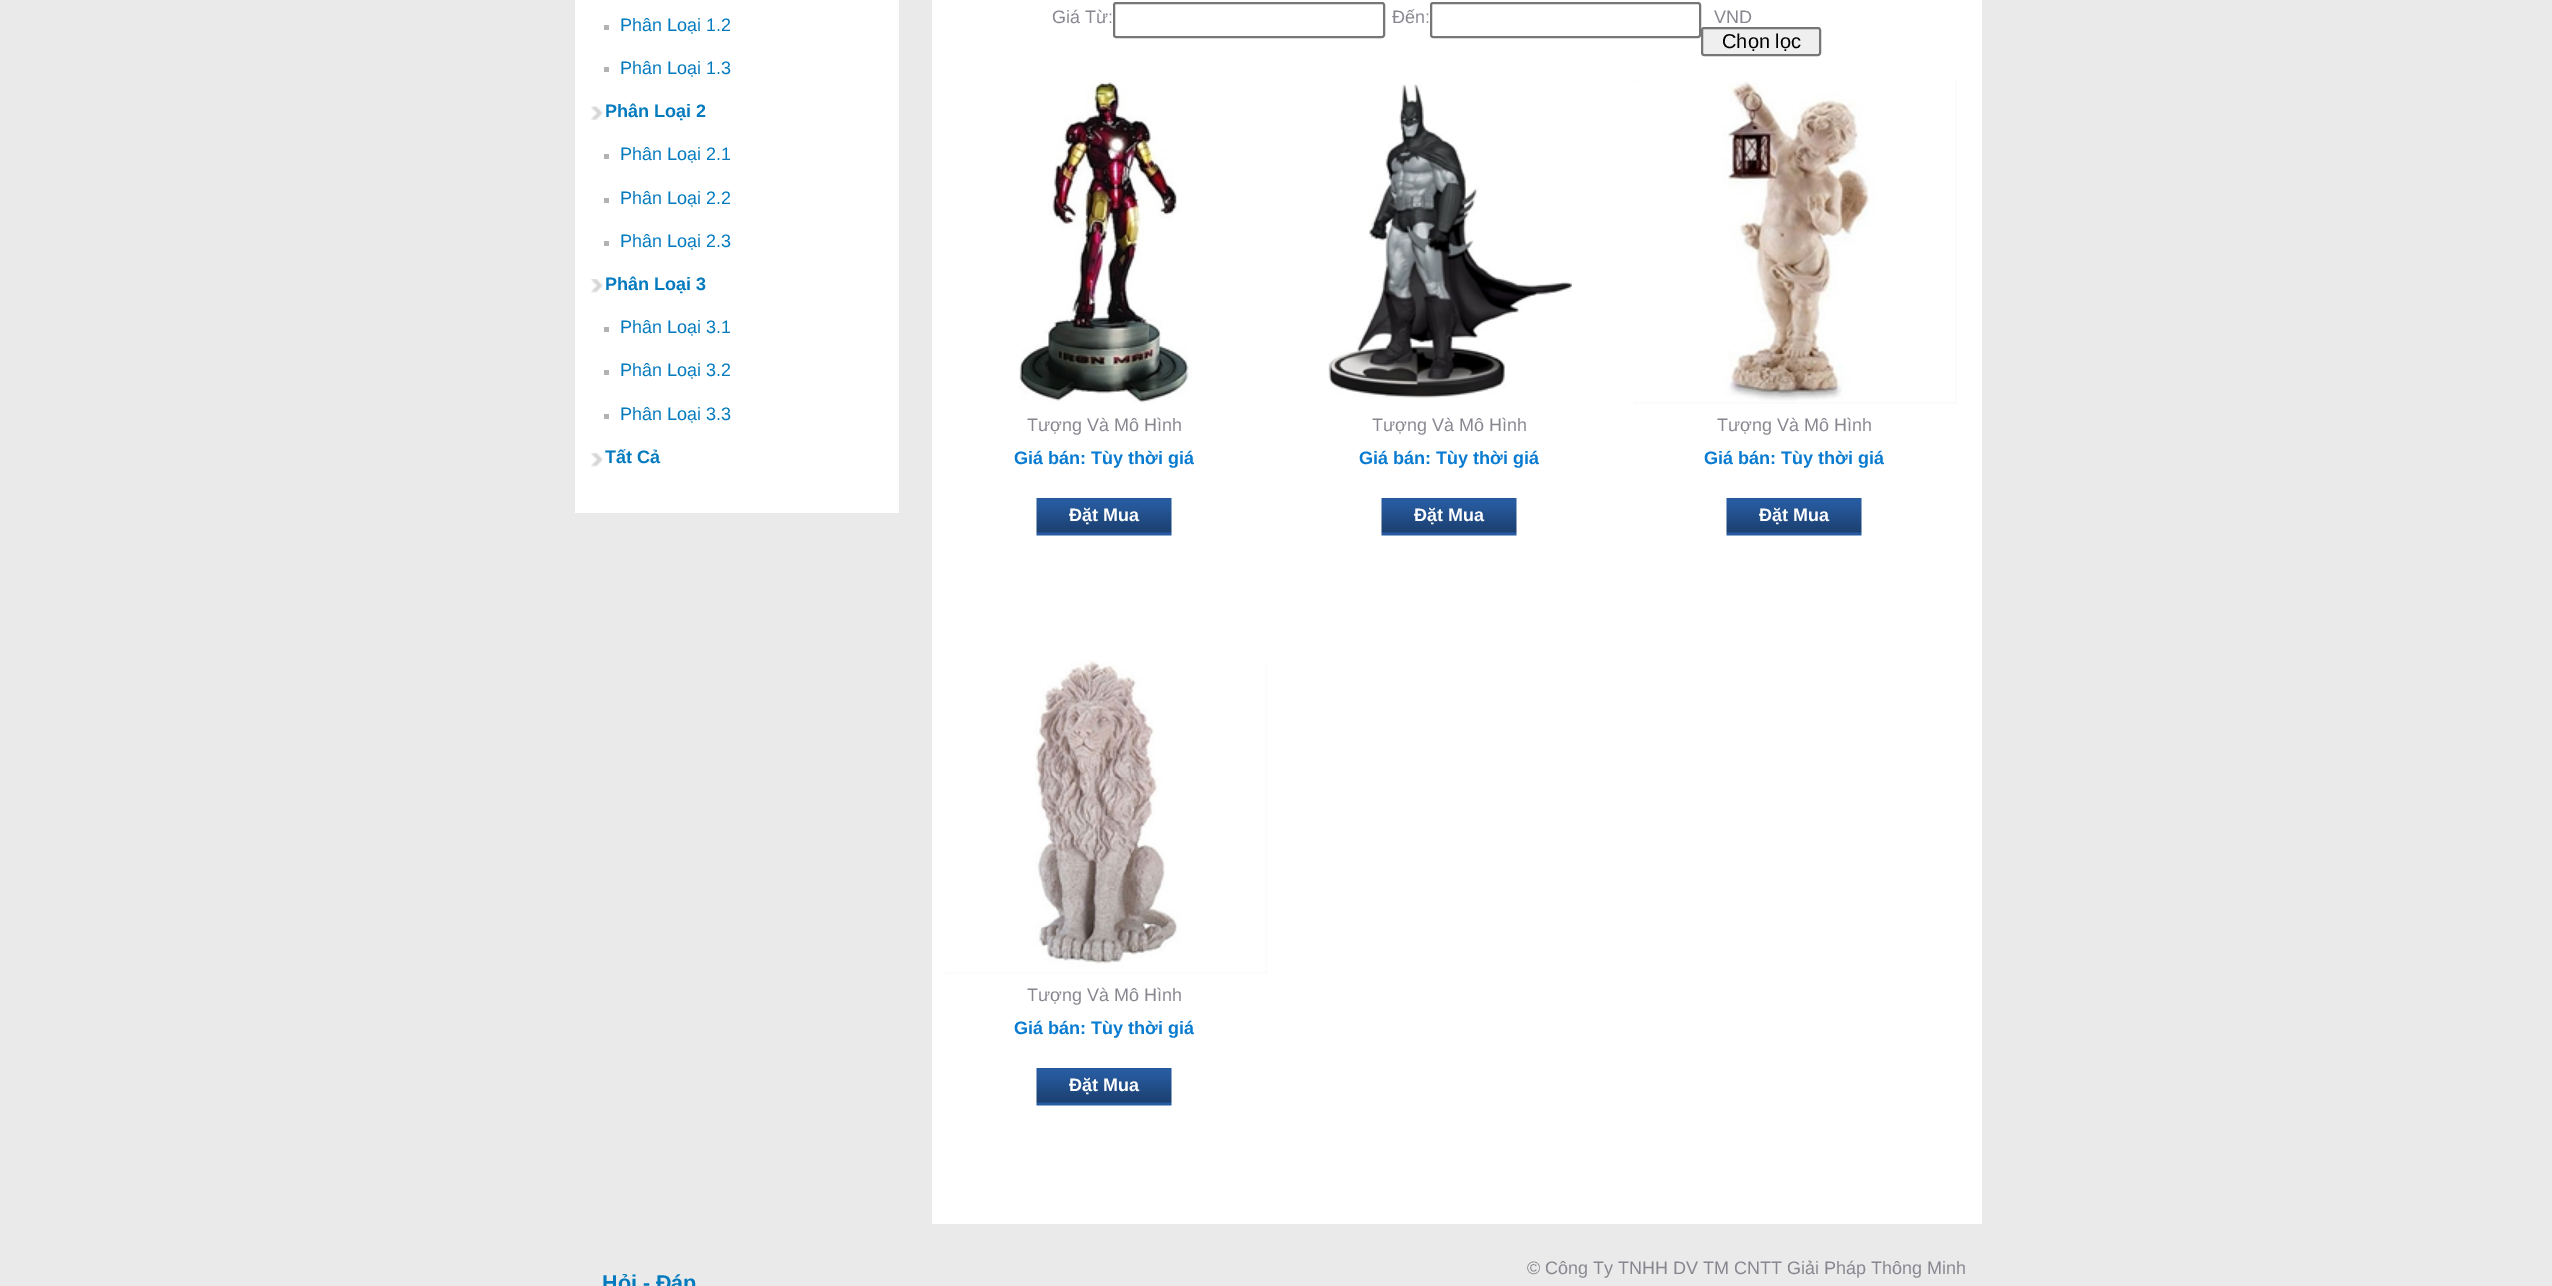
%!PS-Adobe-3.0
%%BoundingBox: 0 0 2552 1286
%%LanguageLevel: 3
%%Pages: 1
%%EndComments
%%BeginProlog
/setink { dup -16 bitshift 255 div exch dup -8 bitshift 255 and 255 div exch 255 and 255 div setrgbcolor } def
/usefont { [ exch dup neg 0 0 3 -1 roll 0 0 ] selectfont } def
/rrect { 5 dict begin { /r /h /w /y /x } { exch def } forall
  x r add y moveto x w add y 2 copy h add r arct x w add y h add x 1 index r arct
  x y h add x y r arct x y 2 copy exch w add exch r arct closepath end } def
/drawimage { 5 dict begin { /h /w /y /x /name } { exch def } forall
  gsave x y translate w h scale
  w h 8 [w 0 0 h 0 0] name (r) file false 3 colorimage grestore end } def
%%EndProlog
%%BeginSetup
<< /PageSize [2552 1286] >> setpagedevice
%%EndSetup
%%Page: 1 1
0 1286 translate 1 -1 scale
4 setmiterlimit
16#EAEAEA setink
0 0 2552 1286 rectfill
16#FFFFFF setink
575 0 324 513 rectfill
16#B2B2B2 setink
604 25 5 5 rectfill
/LiberationSans-Regular 18 usefont
16#037ABE setink
620 31 moveto (Phân Loại 1.2) show
16#B2B2B2 setink
604 67 5 5 rectfill
16#037ABE setink
620 74 moveto (Phân Loại 1.3) show
(img1.raw) 591 106 12 14 drawimage
/LiberationSans-Bold 18 usefont
605 117 moveto (Phân Loại 2) show
16#B2B2B2 setink
604 154 5 5 rectfill
/LiberationSans-Regular 18 usefont
16#037ABE setink
620 160 moveto (Phân Loại 2.1) show
16#B2B2B2 setink
604 198 5 5 rectfill
16#037ABE setink
620 204 moveto (Phân Loại 2.2) show
16#B2B2B2 setink
604 241 5 5 rectfill
16#037ABE setink
620 247 moveto (Phân Loại 2.3) show
(img2.raw) 591 279 12 14 drawimage
/LiberationSans-Bold 18 usefont
605 290 moveto (Phân Loại 3) show
16#B2B2B2 setink
604 327 5 5 rectfill
/LiberationSans-Regular 18 usefont
16#037ABE setink
620 333 moveto (Phân Loại 3.1) show
16#B2B2B2 setink
604 370 5 5 rectfill
16#037ABE setink
620 376 moveto (Phân Loại 3.2) show
16#B2B2B2 setink
604 414 5 5 rectfill
16#037ABE setink
620 420 moveto (Phân Loại 3.3) show
(img2.raw) 591 453 12 14 drawimage
/LiberationSans-Bold 18 usefont
605 463 moveto (Tất Cả) show
16#FFFFFF setink
932 0 1050 1224 rectfill
/LiberationSans-Regular 18 usefont
16#88868F setink
1052 23 moveto (Giá Từ:) show
16#767676 setink
2 setlinewidth
1114 3 270 34 2 rrect stroke
16#88868F setink
1392 23 moveto (Đến:) show
16#767676 setink
1431 3 269 34 2 rrect stroke
16#88868F setink
1714 23 moveto (VND) show
16#EFEFEF setink
1702 28 118 27 2 rrect gsave fill grestore
16#767676 setink
stroke
/LiberationSans-Regular 20 usefont
16#000000 setink
1722 48 moveto (Chọn lọc) show
(img3.raw) 1019 80 173 323 drawimage
/LiberationSans-Regular 18 usefont
16#88868F setink
1027 431 moveto (Tượng Và Mô Hình) show
/LiberationSans-Bold 18 usefont
16#097BD0 setink
1014 464 moveto (Giá bán: Tùy thời giá) show
(img4.raw) 1036 498 136 38 drawimage
16#FFFFFF setink
1069 521 moveto (Đặt Mua) show
(img5.raw) 1328 84 244 314 drawimage
/LiberationSans-Regular 18 usefont
16#88868F setink
1372 431 moveto (Tượng Và Mô Hình) show
/LiberationSans-Bold 18 usefont
16#097BD0 setink
1359 464 moveto (Giá bán: Tùy thời giá) show
(img4.raw) 1381 498 136 38 drawimage
16#FFFFFF setink
1414 521 moveto (Đặt Mua) show
(img6.raw) 1633 79 324 325 drawimage
/LiberationSans-Regular 18 usefont
16#88868F setink
1717 431 moveto (Tượng Và Mô Hình) show
/LiberationSans-Bold 18 usefont
16#097BD0 setink
1704 464 moveto (Giá bán: Tùy thời giá) show
(img4.raw) 1726 498 136 38 drawimage
16#FFFFFF setink
1759 521 moveto (Đặt Mua) show
(img7.raw) 943 660 324 314 drawimage
/LiberationSans-Regular 18 usefont
16#88868F setink
1027 1001 moveto (Tượng Và Mô Hình) show
/LiberationSans-Bold 18 usefont
16#097BD0 setink
1014 1034 moveto (Giá bán: Tùy thời giá) show
(img8.raw) 1036 1068 136 38 drawimage
16#FFFFFF setink
1069 1091 moveto (Đặt Mua) show
/LiberationSans-Regular 18 usefont
16#88868F setink
1527 1274 moveto (© Công Ty TNHH DV TM CNTT Giải Pháp Thông Minh) show
/LiberationSans-Bold 21.5 usefont
16#037ABE setink
602 1290 moveto (Hỏi - Đáp) show
showpage
%%EOF
